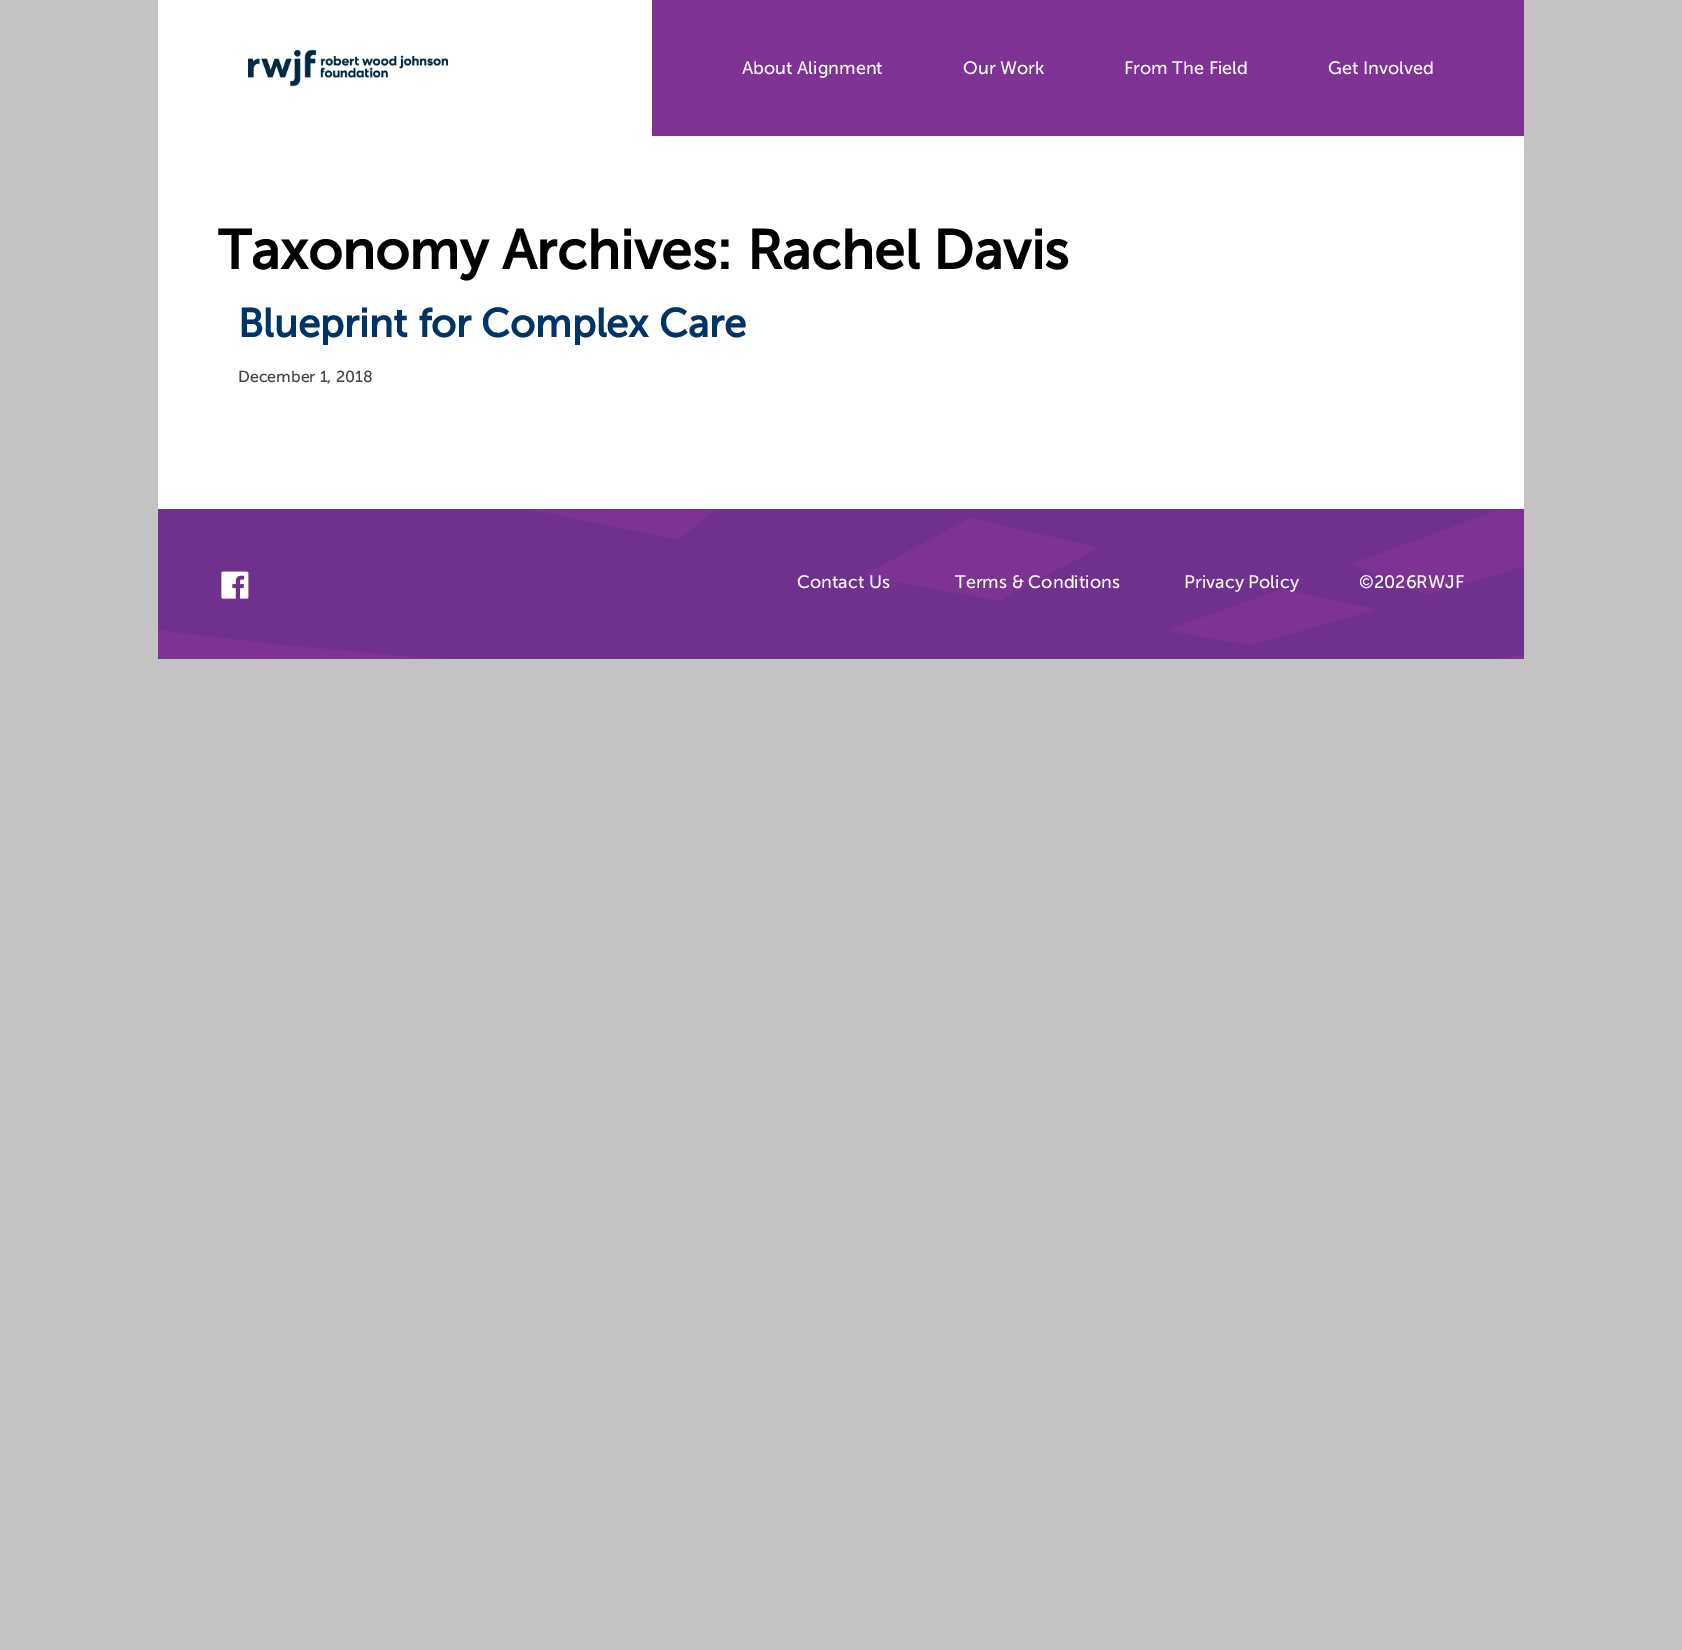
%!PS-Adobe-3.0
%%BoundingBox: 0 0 1682 1650
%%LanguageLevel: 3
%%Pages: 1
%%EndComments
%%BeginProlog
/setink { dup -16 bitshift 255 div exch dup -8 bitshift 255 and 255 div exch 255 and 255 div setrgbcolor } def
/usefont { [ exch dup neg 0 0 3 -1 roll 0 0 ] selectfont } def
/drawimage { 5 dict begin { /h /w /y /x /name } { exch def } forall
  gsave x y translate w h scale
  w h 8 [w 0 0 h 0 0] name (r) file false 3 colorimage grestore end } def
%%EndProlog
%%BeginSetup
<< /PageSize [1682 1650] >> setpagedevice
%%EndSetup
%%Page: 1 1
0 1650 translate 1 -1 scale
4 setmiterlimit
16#C3C3C3 setink
0 0 1682 1650 rectfill
16#FFFFFF setink
158 0 1366 509 rectfill
(img1.raw) 248 49 200 38 drawimage
16#7D3294 setink
652 0 872 136 rectfill
/MuseoSans-Regular 18 usefont
16#FFFFFF setink
[
    [(About Alignment) 742 74]
    [(Our Work) 963 74]
    [(From The Field) 1124 74]
    [(Get Involved) 1328 74]
] { aload pop moveto show } forall
/MuseoSans-Bold 55 usefont
16#000000 setink
218 269 moveto (Taxonomy Archives: Rachel Davis) show
/MuseoSans-Bold 40 usefont
16#003366 setink
238 337 moveto (Blueprint for Complex Care) show
/MuseoSans-Regular 16 usefont
16#444444 setink
238 382 moveto (December 1, 2018) show
(img2.raw) 158 509 1366 150 drawimage
(img3.raw) 221 571 28 28 drawimage
/MuseoSans-Regular 18 usefont
16#FFFFFF setink
[
    [(Contact Us) 797 588]
    [(Terms & Conditions) 955 588]
    [(Privacy Policy) 1184 588]
    [(©2026RWJF) 1359 588]
] { aload pop moveto show } forall
showpage
%%EOF
